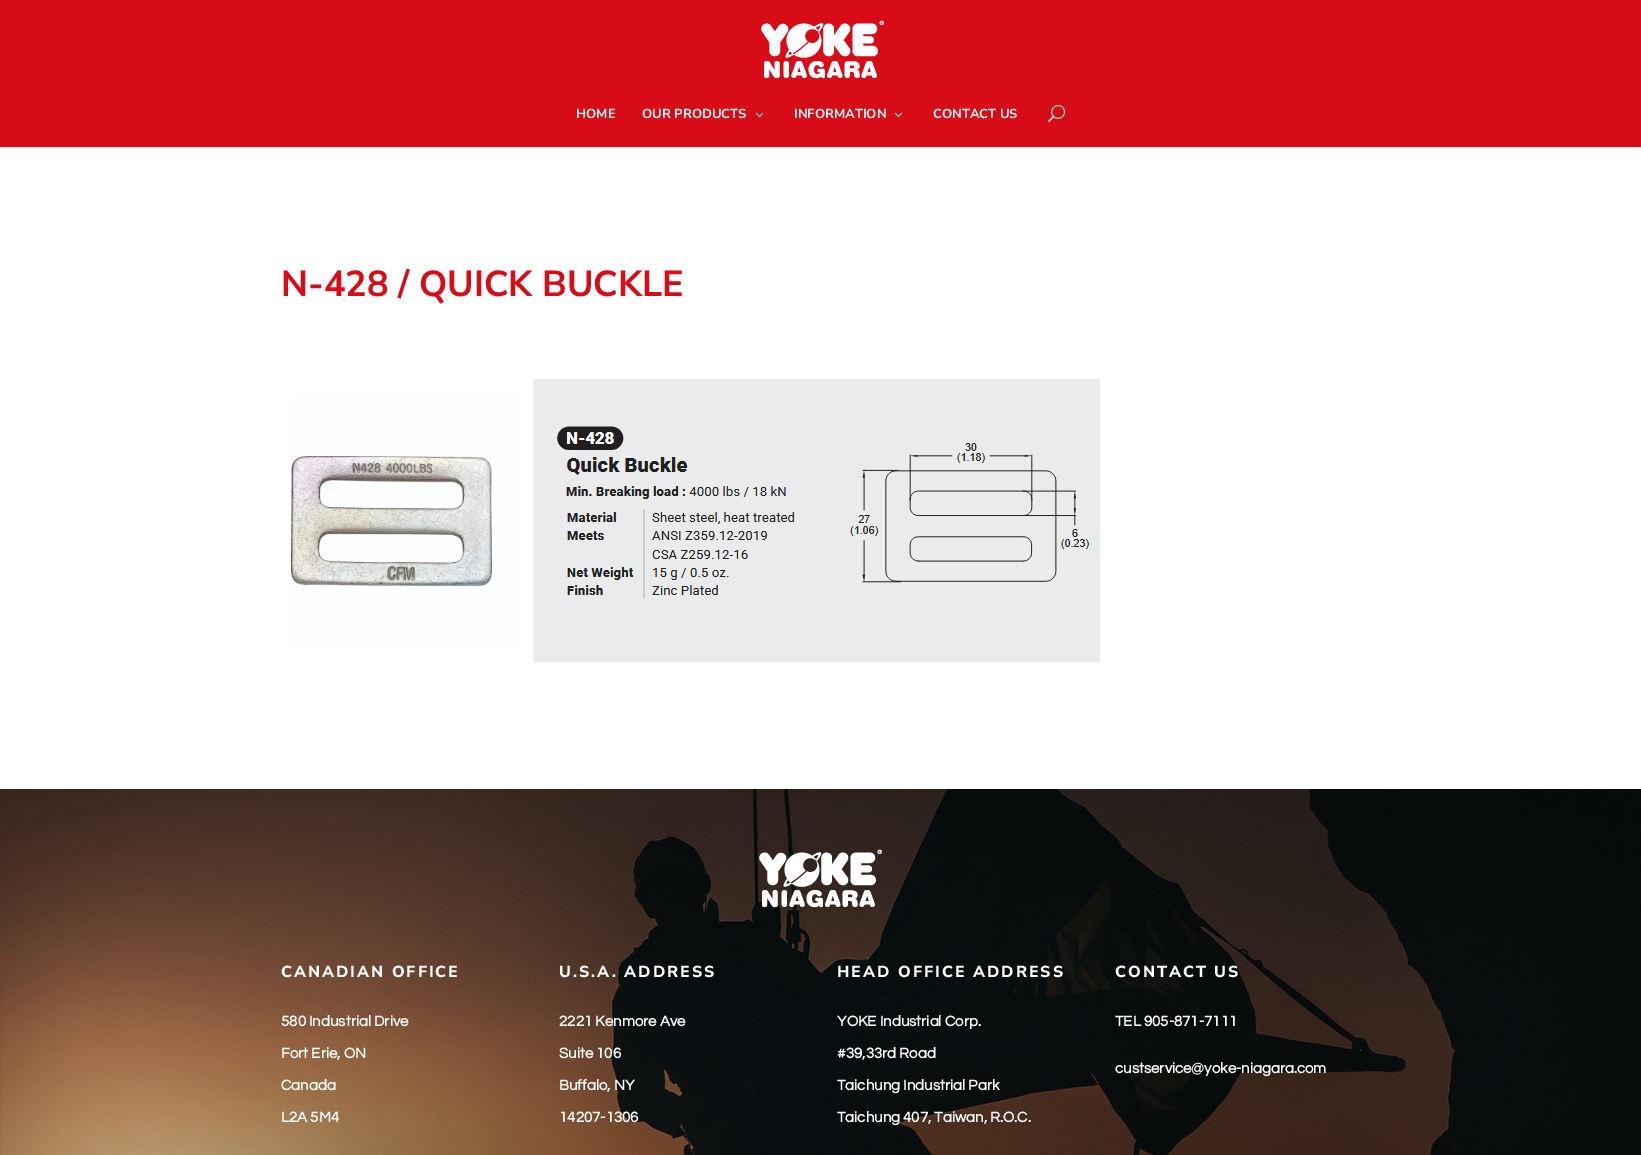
%!PS-Adobe-3.0
%%BoundingBox: 0 0 1641 1155
%%LanguageLevel: 3
%%Pages: 1
%%EndComments
%%BeginProlog
/setink { dup -16 bitshift 255 div exch dup -8 bitshift 255 and 255 div exch 255 and 255 div setrgbcolor } def
/usefont { [ exch dup neg 0 0 3 -1 roll 0 0 ] selectfont } def
/drawimage { 5 dict begin { /h /w /y /x /name } { exch def } forall
  gsave x y translate w h scale
  w h 8 [w 0 0 h 0 0] name (r) file false 3 colorimage grestore end } def
%%EndProlog
%%BeginSetup
<< /PageSize [1641 1155] >> setpagedevice
%%EndSetup
%%Page: 1 1
0 1155 translate 1 -1 scale
4 setmiterlimit
16#FFFFFF setink
0 0 1641 1155 rectfill
16#E6E6E6 setink
0 147 1641 1 rectfill
16#D70C17 setink
0 0 1641 147 rectfill
(img1.raw) 761 20 123 59 drawimage
/NunitoSans-ExtraLight 13 usefont
16#FFFFFF setink
576 118 moveto (HOME) show
642 118 moveto (OUR PRODUCTS) show
(img2.raw) 755 112 9 5 drawimage
794 118 moveto (INFORMATION) show
(img2.raw) 894 112 9 5 drawimage
933 118 moveto (CONTACT US) show
(img3.raw) 1048 105 17 18 drawimage
/NunitoSans-ExtraLight 36 usefont
16#D70C17 setink
281 296 moveto (N-428 / QUICK BUCKLE) show
(img4.raw) 291 379 810 284 drawimage
(img5.raw) 0 789 1641 366 drawimage
(img6.raw) 759 849 123 59 drawimage
/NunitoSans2-ExtraLight 16 usefont
16#FFFFFF setink
281 977 moveto 2 0 (CANADIAN OFFICE) ashow
/Questrial-Bold 15 usefont
[
    [(580 Industrial Drive) 281 1026]
    [(Fort Erie, ON) 281 1058]
    [(Canada) 281 1090]
    [(L2A 5M4) 281 1122]
] { aload pop moveto show } forall
/NunitoSans2-ExtraLight 16 usefont
559 977 moveto 2 0 (U.S.A. ADDRESS) ashow
/Questrial-Bold 15 usefont
[
    [(2221 Kenmore Ave) 559 1026]
    [(Suite 106) 559 1058]
    [(Buffalo, NY) 559 1090]
    [(14207-1306) 559 1122]
] { aload pop moveto show } forall
/NunitoSans2-ExtraLight 16 usefont
837 977 moveto 2 0 (HEAD OFFICE ADDRESS) ashow
/Questrial-Bold 15 usefont
[
    [(YOKE Industrial Corp.) 837 1026]
    [(#39,33rd Road) 837 1058]
    [(Taichung Industrial Park) 837 1090]
    [(Taichung 407, Taiwan, R.O.C.) 837 1122]
] { aload pop moveto show } forall
/NunitoSans2-ExtraLight 16 usefont
1115 977 moveto 2 0 (CONTACT US) ashow
/Questrial-Bold 15 usefont
1115 1026 moveto (TEL 905-871-7111) show
1115 1073 moveto (custservice@yoke-niagara.com) show
showpage
%%EOF
